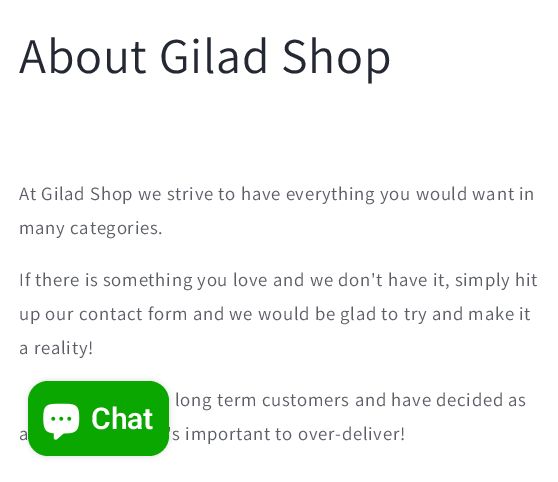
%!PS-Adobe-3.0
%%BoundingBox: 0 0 558 482
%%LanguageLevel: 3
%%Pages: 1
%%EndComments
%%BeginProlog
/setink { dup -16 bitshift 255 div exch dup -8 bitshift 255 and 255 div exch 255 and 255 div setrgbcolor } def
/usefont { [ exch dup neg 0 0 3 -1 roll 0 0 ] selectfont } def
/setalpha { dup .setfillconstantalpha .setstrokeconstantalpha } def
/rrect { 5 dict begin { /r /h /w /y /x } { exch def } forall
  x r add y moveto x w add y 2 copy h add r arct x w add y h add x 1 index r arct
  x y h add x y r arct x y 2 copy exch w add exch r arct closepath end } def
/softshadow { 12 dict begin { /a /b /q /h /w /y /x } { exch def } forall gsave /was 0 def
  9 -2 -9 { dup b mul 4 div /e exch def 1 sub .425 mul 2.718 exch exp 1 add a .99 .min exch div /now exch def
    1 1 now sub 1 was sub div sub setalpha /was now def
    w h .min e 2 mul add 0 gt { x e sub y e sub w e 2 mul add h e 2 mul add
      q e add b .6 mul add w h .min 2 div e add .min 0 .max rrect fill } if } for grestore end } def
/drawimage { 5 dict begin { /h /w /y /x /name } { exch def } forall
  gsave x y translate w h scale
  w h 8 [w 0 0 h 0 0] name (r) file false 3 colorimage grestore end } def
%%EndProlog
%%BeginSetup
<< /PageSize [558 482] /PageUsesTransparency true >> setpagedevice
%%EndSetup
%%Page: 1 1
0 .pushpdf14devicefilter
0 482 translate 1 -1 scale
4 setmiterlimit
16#FFFFFF setink
0 0 558 482 rectfill
/Assistant-Regular 50 usefont
16#242833 setink
19 73 moveto 0.75 0 (About Gilad Shop) ashow
/Assistant-Regular 18.75 usefont
16#5B5E66 setink
19 200 moveto 0.75 0 (At Gilad Shop we strive to have everything you would want in) ashow
19 234 moveto 0.75 0 (many categories.) ashow
19 286 moveto 0.75 0 (If there is something you love and we don't have it, simply hit) ashow
19 320 moveto 0.75 0 (up our contact form and we would be glad to try and make it) ashow
19 354 moveto 0.75 0 (a reality!) ashow
175 406 moveto 0.75 0 (long term customers and have decided as) ashow
19 440 moveto 0.75 0 (a) ashow
167 440 moveto 0.75 0 ('s important to over-deliver!) ashow
16#000000 setink
28 381 141 75 20 3 0.15 softshadow
16#0AA700 setink
28 381 141 75 20 rrect fill
(img1.raw) 43 403 37 37 drawimage
/Roboto-SemiBold 30 usefont
16#FFFFFF setink
91 429 moveto (Chat) show
.poppdf14devicefilter showpage
%%EOF
